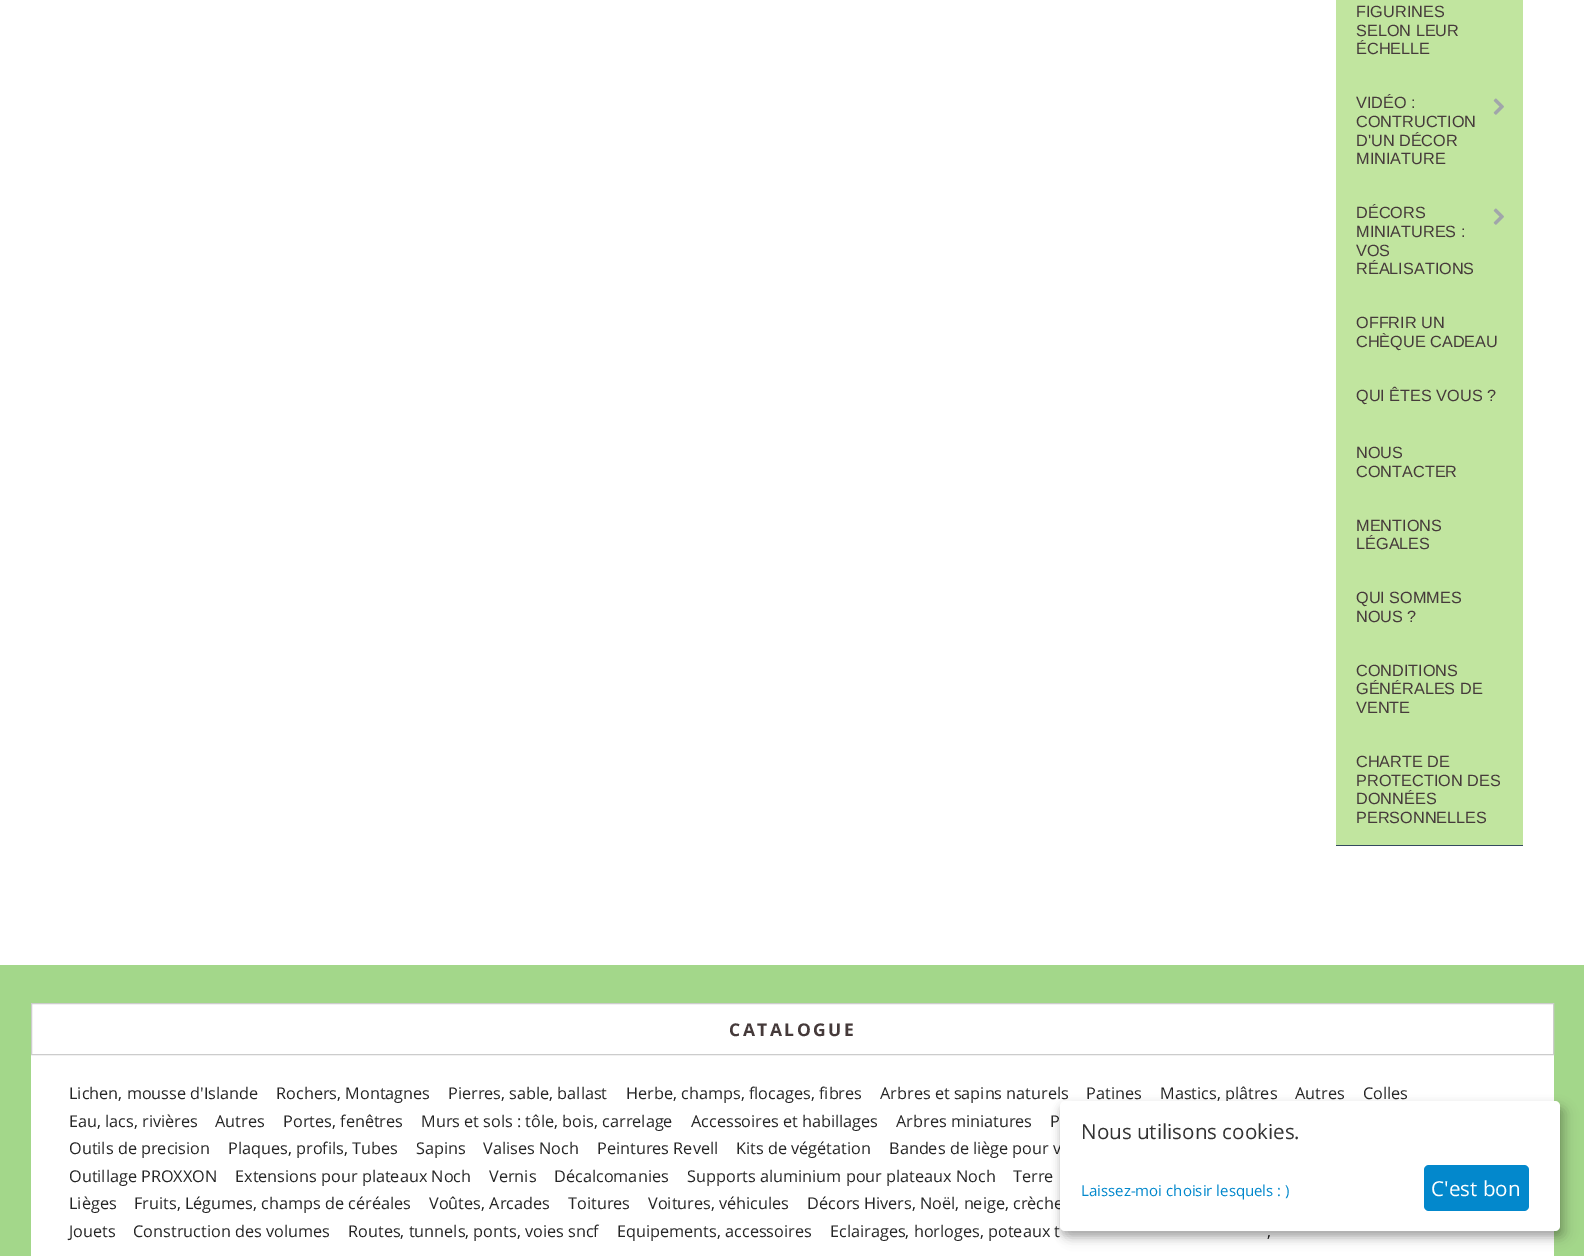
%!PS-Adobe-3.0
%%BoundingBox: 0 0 1584 1256
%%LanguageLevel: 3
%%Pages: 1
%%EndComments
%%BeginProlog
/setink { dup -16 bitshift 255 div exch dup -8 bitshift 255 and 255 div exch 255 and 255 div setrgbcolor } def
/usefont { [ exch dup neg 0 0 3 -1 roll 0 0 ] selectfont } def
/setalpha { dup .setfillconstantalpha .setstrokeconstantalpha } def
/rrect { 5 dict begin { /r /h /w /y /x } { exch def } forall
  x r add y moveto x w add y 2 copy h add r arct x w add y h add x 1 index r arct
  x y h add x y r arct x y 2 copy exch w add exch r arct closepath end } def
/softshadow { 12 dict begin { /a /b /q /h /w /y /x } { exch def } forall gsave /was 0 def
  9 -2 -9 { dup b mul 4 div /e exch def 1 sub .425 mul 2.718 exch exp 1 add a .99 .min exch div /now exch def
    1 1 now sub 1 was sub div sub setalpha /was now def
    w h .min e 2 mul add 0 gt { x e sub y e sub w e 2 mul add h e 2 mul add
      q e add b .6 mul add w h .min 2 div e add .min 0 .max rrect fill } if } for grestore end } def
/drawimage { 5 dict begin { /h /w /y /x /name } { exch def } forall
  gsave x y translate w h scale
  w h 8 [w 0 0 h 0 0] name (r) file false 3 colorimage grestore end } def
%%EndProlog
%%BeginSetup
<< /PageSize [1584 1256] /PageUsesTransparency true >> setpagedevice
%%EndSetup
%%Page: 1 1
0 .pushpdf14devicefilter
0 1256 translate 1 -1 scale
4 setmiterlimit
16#FFFFFF setink
0 0 1584 1256 rectfill
16#C1E59F setink
1336 0 187 845 rectfill
16#34495E setink
1336 845 187 1 rectfill
/LiberationSans-Regular 16.25 usefont
16#453A3A setink
[
    [(FIGURINES) 1356 17]
    [(SELON LEUR) 1356 36]
    [(ÉCHELLE) 1356 54]
    [(VIDÉO :) 1356 108]
    [(CONTRUCTION) 1356 127]
    [(D'UN DÉCOR) 1356 146]
    [(MINIATURE) 1356 164]
] { aload pop moveto show } forall
(img1.raw) 1493 98 11 17 drawimage
[
    [(DÉCORS) 1356 218]
    [(MINIATURES :) 1356 237]
    [(VOS) 1356 256]
    [(RÉALISATIONS) 1356 274]
] { aload pop moveto show } forall
(img1.raw) 1493 208 11 17 drawimage
[
    [(OFFRIR UN) 1356 328]
    [(CHÈQUE CADEAU) 1356 347]
    [(QUI ÊTES VOUS ?) 1356 401]
    [(NOUS) 1356 458]
    [(CONTACTER) 1356 477]
    [(MENTIONS) 1356 531]
    [(LÉGALES) 1356 549]
    [(QUI SOMMES) 1356 603]
    [(NOUS ?) 1356 622]
    [(CONDITIONS) 1356 676]
    [(GÉNÉRALES DE) 1356 694]
    [(VENTE) 1356 713]
    [(CHARTE DE) 1356 767]
    [(PROTECTION DES) 1356 786]
    [(DONNÉES) 1356 804]
    [(PERSONNELLES) 1356 823]
] { aload pop moveto show } forall
16#A3D78A setink
0 965 1584 291 rectfill
16#FFFFFF setink
31 1004 1523 252 rectfill
16#CCCCCC setink
31.5 1003.5 1522 51 rectstroke
/OpenSans-Bold 17.5 usefont
16#453A3A setink
729 1036 moveto 2.5 0 (CATALOGUE) ashow
/OpenSans-Regular 16.25 usefont
16#262626 setink
[
    [(Lichen, mousse d'Islande) 69 1099]
    [(Rochers, Montagnes) 276 1099]
    [(Pierres, sable, ballast) 448 1099]
    [(Herbe, champs, flocages, fibres) 626 1099]
    [(Arbres et sapins naturels) 880 1099]
    [(Patines) 1086 1099]
    [(Mastics, plâtres) 1160 1099]
    [(Autres) 1295 1099]
    [(Colles) 1363 1099]
    [(Eau, lacs, rivières) 69 1127]
    [(Autres) 215 1127]
    [(Portes, fenêtres) 283 1127]
    [(Murs et sols : tôle, bois, carrelage) 421 1127]
    [(Accessoires et habillages) 691 1127]
    [(Arbres miniatures) 896 1127]
    [(P) 1050 1127]
    [(Outils de precision) 69 1154]
    [(Plaques, profils, Tubes) 228 1154]
    [(Sapins) 416 1154]
    [(Valises Noch) 483 1154]
    [(Peintures Revell) 597 1154]
    [(Kits de végétation) 736 1154]
    [(Bandes de liège pour v) 889 1154]
    [(Outillage PROXXON) 69 1182]
    [(Extensions pour plateaux Noch) 235 1182]
    [(Vernis) 489 1182]
    [(Décalcomanies) 554 1182]
    [(Supports aluminium pour plateaux Noch) 687 1182]
    [(Terre) 1013 1182]
    [(Lièges) 69 1209]
    [(Fruits, Légumes, champs de céréales) 134 1209]
    [(Voûtes, Arcades) 429 1209]
    [(Toitures) 568 1209]
    [(Voitures, véhicules) 648 1209]
    [(Décors Hivers, Noël, neige, crèche) 807 1209]
    [(Jouets) 69 1237]
    [(Construction des volumes) 133 1237]
    [(Routes, tunnels, ponts, voies sncf) 348 1237]
    [(Equipements, accessoires) 617 1237]
    [(Eclairages, horloges, poteaux t) 830 1237]
    [(,) 1267 1237]
] { aload pop moveto show } forall
16#000000 setink
1066 1108 500 130 5 6 0.19 softshadow
1060 1106 500 130 5 4 0.2 softshadow
16#FFFFFF setink
1060 1101 500 130 5 rrect fill
/OpenSans-Regular 20.6 usefont
16#333333 setink
1081 1139 moveto (Nous utilisons cookies.) show
/OpenSans-Regular 15 usefont
16#0388CC setink
1081 1196 moveto (Laissez-moi choisir lesquels : \)) show
1424 1165 105 46 5 rrect fill
/OpenSans-Regular 20.6 usefont
16#FFFFFF setink
1431 1196 moveto (C'est bon) show
.poppdf14devicefilter showpage
%%EOF
